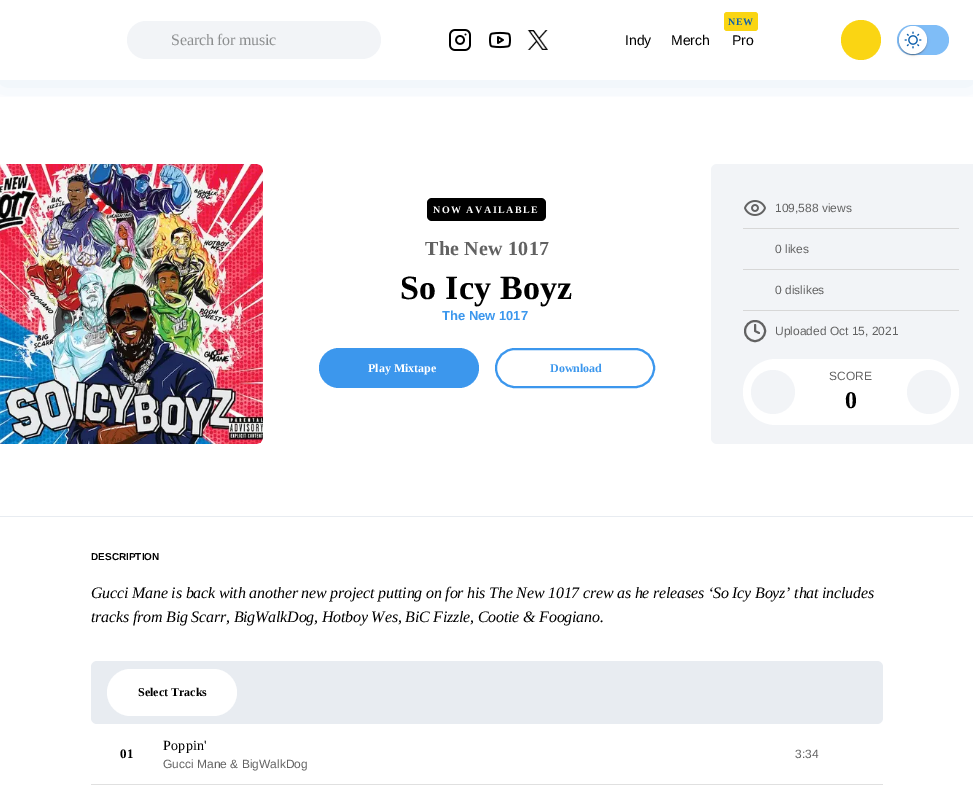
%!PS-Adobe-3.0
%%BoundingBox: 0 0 973 790
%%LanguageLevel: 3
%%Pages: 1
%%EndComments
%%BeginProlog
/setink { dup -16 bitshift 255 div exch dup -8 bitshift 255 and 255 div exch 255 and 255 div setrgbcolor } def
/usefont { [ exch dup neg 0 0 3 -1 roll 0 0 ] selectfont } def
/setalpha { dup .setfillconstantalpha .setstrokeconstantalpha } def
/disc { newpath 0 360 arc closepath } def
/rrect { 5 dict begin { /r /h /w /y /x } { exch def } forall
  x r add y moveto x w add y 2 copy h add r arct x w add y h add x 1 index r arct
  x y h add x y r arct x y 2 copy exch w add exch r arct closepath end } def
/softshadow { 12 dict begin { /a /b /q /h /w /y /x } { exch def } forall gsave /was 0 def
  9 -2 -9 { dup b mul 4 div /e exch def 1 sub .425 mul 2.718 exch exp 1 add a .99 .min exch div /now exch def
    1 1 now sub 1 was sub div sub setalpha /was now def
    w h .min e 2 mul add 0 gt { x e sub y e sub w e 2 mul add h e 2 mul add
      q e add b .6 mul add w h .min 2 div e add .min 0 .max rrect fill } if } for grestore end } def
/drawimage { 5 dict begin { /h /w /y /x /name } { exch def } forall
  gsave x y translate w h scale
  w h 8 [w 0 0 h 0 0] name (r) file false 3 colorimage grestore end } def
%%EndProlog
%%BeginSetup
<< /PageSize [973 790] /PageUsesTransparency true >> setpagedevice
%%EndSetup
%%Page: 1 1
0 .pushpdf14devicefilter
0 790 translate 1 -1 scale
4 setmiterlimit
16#FFFFFF setink
0 0 973 790 rectfill
gsave
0 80 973 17 rectclip
16#0C5FAC setink
0 4 973 80 0 16 0.1 softshadow
grestore
16#F2F4F7 setink
127 21 254 38 19 rrect fill
/LiberationSerif-Regular 16 usefont
16#8C8E8F setink
171 45 moveto -0.2 0 (Search for music) ashow
(img1.raw) 449 29 22 22 drawimage
(img2.raw) 489 31 22 18 drawimage
(img3.raw) 527 30 21 20 drawimage
/LiberationSans-Regular 14 usefont
16#000000 setink
625 45 moveto (Indy) show
671 45 moveto (Merch) show
16#FAD513 setink
724 12 34 19 3 rrect fill
/LiberationSerif-Bold 10 usefont
16#0C5FAC setink
728 25 moveto 0.5 0 (NEW) ashow
/LiberationSans-Regular 14 usefont
16#000000 setink
732 45 moveto (Pro) show
16#FAD513 setink
861 40 20 disc fill
16#7FBDF7 setink
897 25 52 30 15 rrect fill
16#000000 setink
899 27 28 28 14 1.5 0.12 softshadow
899 27 28 28 14 0.5 0.14 softshadow
900 29 26 26 13 0.5 0.2 softshadow
16#FFFFFF setink
913 40 14 disc fill
(img4.raw) 904 31 18 18 drawimage
16#E8ECF1 setink
0 516 973 1 rectfill
(img5.raw) 0 164 263 280 drawimage
16#000000 setink
427 198 119 23 5 rrect fill
/LiberationSerif-Bold 10 usefont
16#FFFFFF setink
433 213 moveto 1.5 0 (NOW AVAILABLE) ashow
/LiberationSerif-Bold 20 usefont
16#626262 setink
425 255 moveto 0.25 0 (The New 1017) ashow
/LiberationSerif-Bold 34 usefont
16#000000 setink
400 299 moveto 0.25 0 (So Icy Boyz) ashow
/LiberationSans-Bold 13 usefont
16#3C97ED setink
442 320 moveto (The New 1017) show
319 348 160 40 20 rrect fill
/LiberationSerif-Bold 12 usefont
16#FFFFFF setink
368 372 moveto (Play Mixtape) show
16#3C97ED setink
2 setlinewidth
496 349 158 38 19 rrect stroke
550 372 moveto (Download) show
16#F2F4F7 setink
711 164 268 280 6 rrect fill
16#D7D7D7 setink
743 228 216 1 rectfill
(img6.raw) 744 200 22 16 drawimage
/LiberationSans-Regular 12 usefont
16#626262 setink
775 212 moveto (109,588 views) show
16#D7D7D7 setink
743 269 216 1 rectfill
16#626262 setink
775 253 moveto (0 likes) show
16#D7D7D7 setink
743 310 216 1 rectfill
16#626262 setink
775 294 moveto (0 dislikes) show
1 setlinecap
1 setlinejoin
755 325 moveto 755 331 lineto 759 333 lineto stroke
0 setlinecap
0 setlinejoin
755 331 10 disc stroke
775 335 moveto (Uploaded Oct 15, 2021) show
16#FFFFFF setink
743 359 216 66 33 rrect fill
16#F2F4F7 setink
773 392 22 disc fill
16#626262 setink
829 380 moveto (SCORE) show
/LiberationSerif-Bold 24 usefont
16#000000 setink
845 408 moveto (0) show
16#F2F4F7 setink
929 392 22 disc fill
/LiberationSans-Bold 10 usefont
16#000000 setink
91 560 moveto (DESCRIPTION) show
/LiberationSerif-Italic 16 usefont
91 598 moveto -0.2 0 (Gucci Mane is back with another new project putting on for his The New 1017 crew as he releases ‘So Icy Boyz’ that includes) ashow
91 622 moveto -0.2 0 (tracks from Big Scarr, BigWalkDog, Hotboy Wes, BiC Fizzle, Cootie & Foogiano.) ashow
16#E8ECF1 setink
91 661 792 63 6 rrect fill
16#FFFFFF setink
107 669 130 47 23.5 rrect fill
/LiberationSerif-Bold 12 usefont
16#000000 setink
138 696 moveto (Select Tracks) show
/LiberationSerif-Bold 13 usefont
120 758 moveto (01) show
/LiberationSerif-Regular 14 usefont
163 750 moveto 0.25 0 (Poppin') ashow
/LiberationSans-Regular 12 usefont
16#626262 setink
163 768 moveto (Gucci Mane & BigWalkDog) show
795 758 moveto (3:34) show
16#E0E0E0 setink
91 784 792 1 rectfill
.poppdf14devicefilter showpage
%%EOF
